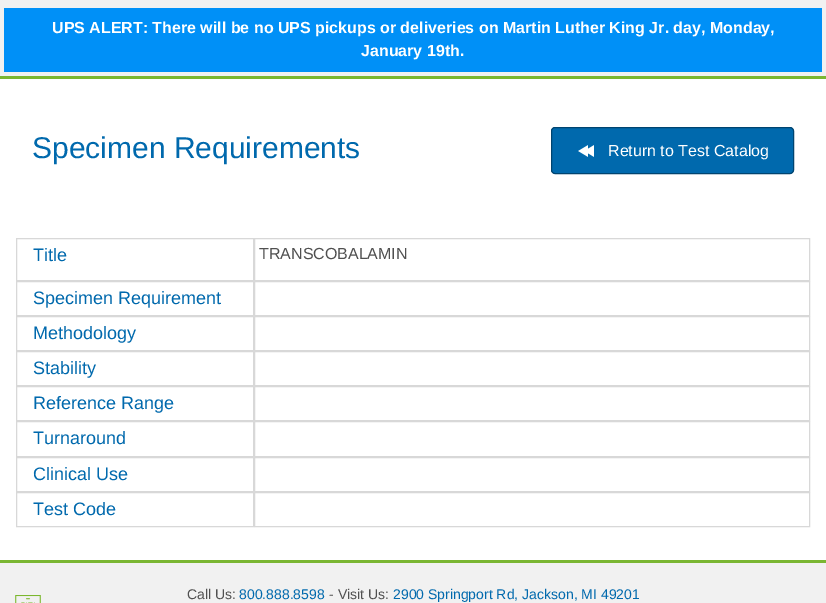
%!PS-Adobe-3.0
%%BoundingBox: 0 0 826 603
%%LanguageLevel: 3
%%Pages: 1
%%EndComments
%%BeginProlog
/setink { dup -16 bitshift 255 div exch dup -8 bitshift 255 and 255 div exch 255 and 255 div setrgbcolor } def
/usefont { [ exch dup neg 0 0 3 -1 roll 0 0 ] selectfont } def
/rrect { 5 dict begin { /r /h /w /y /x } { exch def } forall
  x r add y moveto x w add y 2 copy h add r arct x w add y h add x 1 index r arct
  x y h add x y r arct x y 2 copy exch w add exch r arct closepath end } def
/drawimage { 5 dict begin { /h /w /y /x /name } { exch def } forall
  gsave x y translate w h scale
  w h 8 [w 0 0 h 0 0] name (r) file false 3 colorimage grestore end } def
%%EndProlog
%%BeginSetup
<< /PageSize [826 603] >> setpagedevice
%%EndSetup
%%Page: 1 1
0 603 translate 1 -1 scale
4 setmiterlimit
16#F1F1F1 setink
0 0 826 603 rectfill
16#7AB632 setink
0 76 826 3 rectfill
16#0090F7 setink
4 8 818 64 rectfill
/LiberationSans-Bold 16 usefont
16#FFFFFF setink
52 33 moveto (UPS ALERT: There will be no UPS pickups or deliveries on Martin Luther King Jr. day, Monday,) show
361 56 moveto (January 19th.) show
0 79 826 481 rectfill
/LiberationSans-Regular 30 usefont
16#0069AD setink
32 158 moveto (Specimen Requirements) show
551.5 127.5 242 46 3.5 rrect gsave fill grestore
16#004470 setink
stroke
(img1.raw) 578 145 16 12 drawimage
/LiberationSans-Regular 16 usefont
16#FFFFFF setink
608 156 moveto (Return to Test Catalog) show
16#D8D8D8 setink
16.5 238.5 237 42 rectstroke
/LiberationSans-Regular 18 usefont
16#0069AD setink
33 261 moveto (Title) show
16#D8D8D8 setink
254.5 238.5 555 42 rectstroke
/LiberationSans-Regular 16 usefont
16#505050 setink
259 259 moveto (TRANSCOBALAMIN) show
16#D8D8D8 setink
16.5 281.5 237 34 rectstroke
/LiberationSans-Regular 18 usefont
16#0069AD setink
33 304 moveto (Specimen Requirement) show
16#D8D8D8 setink
254.5 281.5 555 34 rectstroke
16.5 316.5 237 34 rectstroke
16#0069AD setink
33 339 moveto (Methodology) show
16#D8D8D8 setink
254.5 316.5 555 34 rectstroke
16.5 351.5 237 34 rectstroke
16#0069AD setink
33 374 moveto (Stability) show
16#D8D8D8 setink
254.5 351.5 555 34 rectstroke
16.5 386.5 237 34 rectstroke
16#0069AD setink
33 409 moveto (Reference Range) show
16#D8D8D8 setink
254.5 386.5 555 34 rectstroke
16.5 421.5 237 35 rectstroke
16#0069AD setink
33 444 moveto (Turnaround) show
16#D8D8D8 setink
254.5 421.5 555 35 rectstroke
16.5 457.5 237 34 rectstroke
16#0069AD setink
33 480 moveto (Clinical Use) show
16#D8D8D8 setink
254.5 457.5 555 34 rectstroke
16.5 492.5 237 34 rectstroke
16#0069AD setink
33 515 moveto (Test Code) show
16#D8D8D8 setink
254.5 492.5 555 34 rectstroke
16#7AB632 setink
0 560 826 3 rectfill
(img2.raw) 15 595 26 8 drawimage
/LiberationSans-Regular 14 usefont
16#505050 setink
187 599 moveto (Call Us:) show
16#0069AD setink
239 599 moveto (800.888.8598) show
16#505050 setink
329 599 moveto (- Visit Us:) show
16#0069AD setink
393 599 moveto (2900 Springport Rd, Jackson, MI 49201) show
showpage
%%EOF
